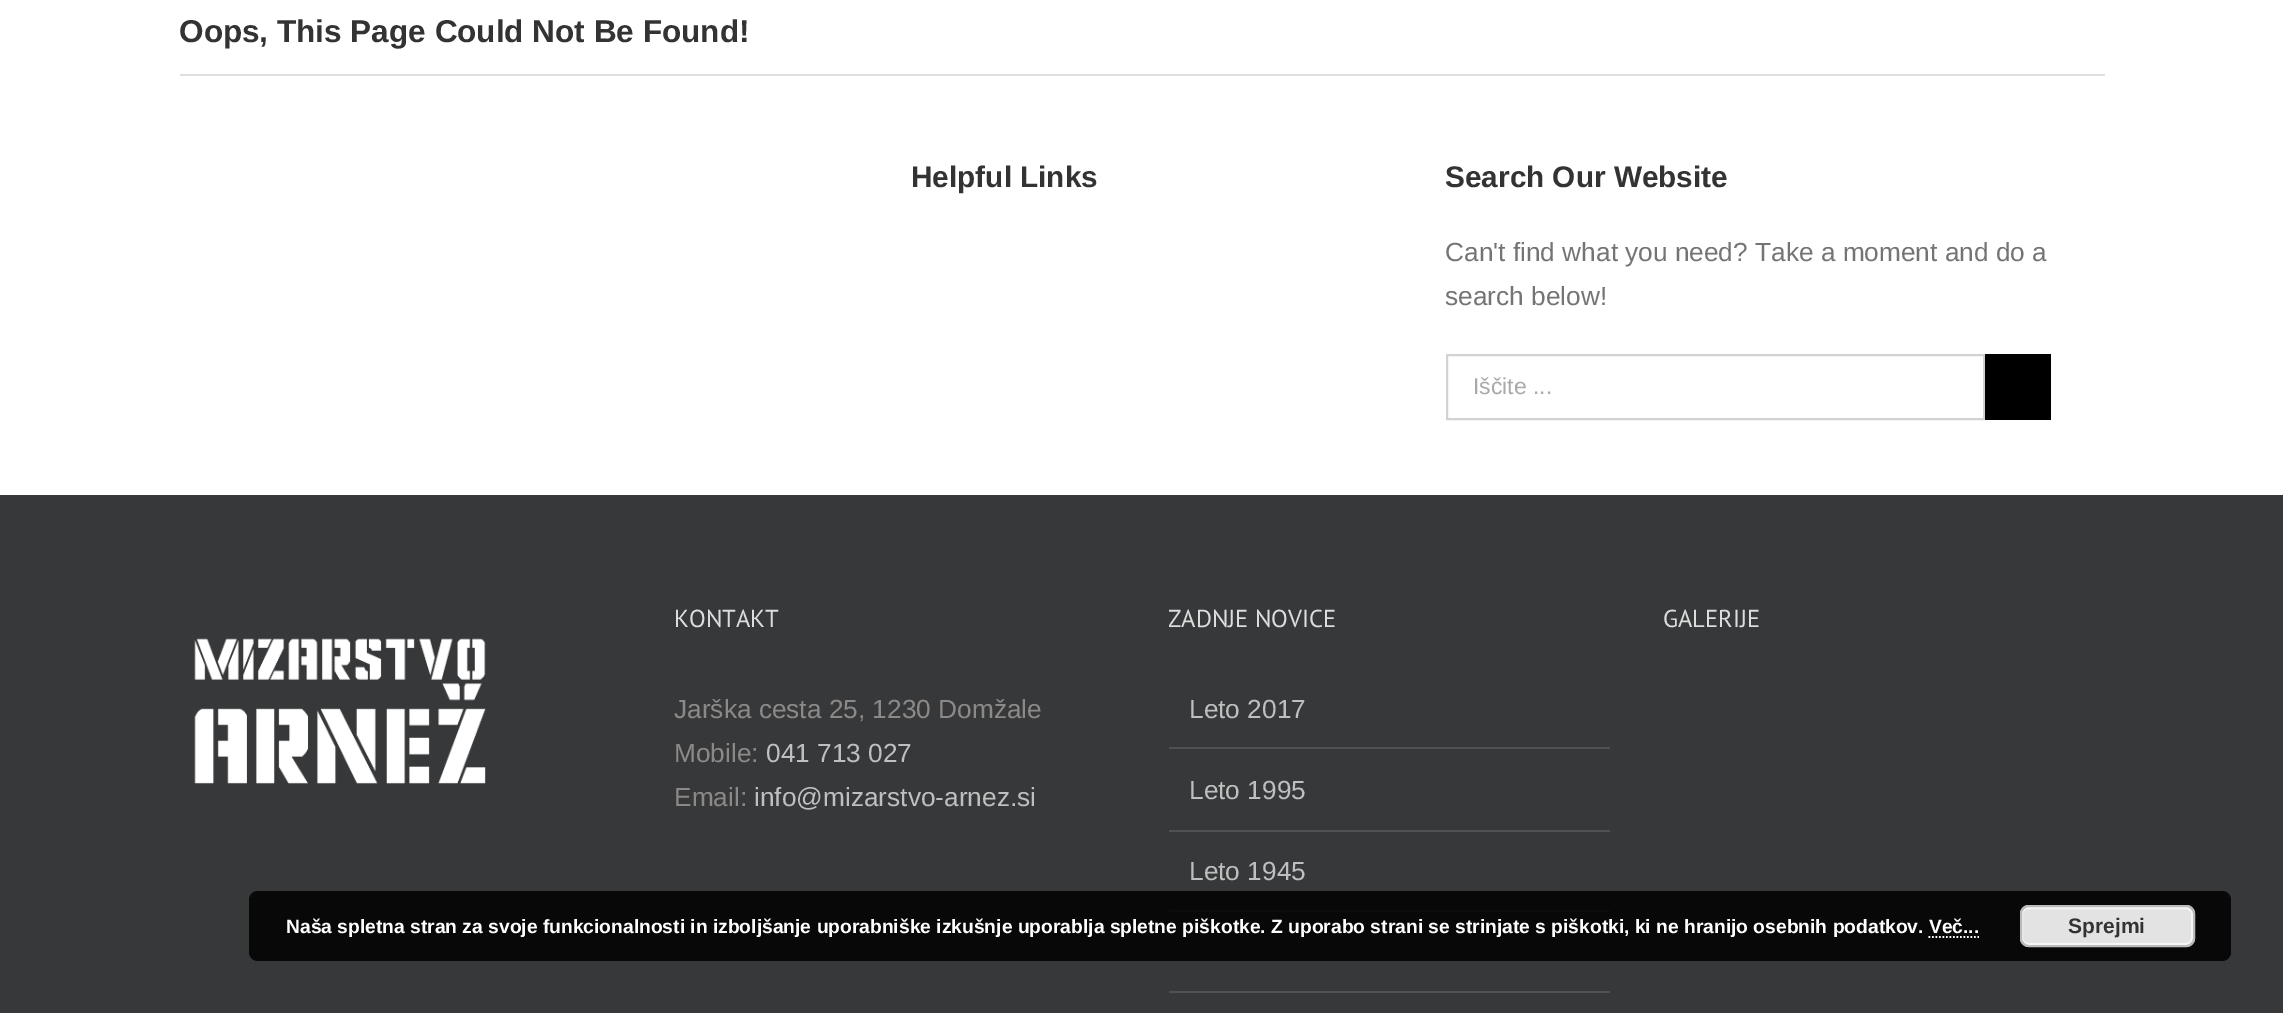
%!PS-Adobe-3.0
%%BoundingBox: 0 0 2283 1013
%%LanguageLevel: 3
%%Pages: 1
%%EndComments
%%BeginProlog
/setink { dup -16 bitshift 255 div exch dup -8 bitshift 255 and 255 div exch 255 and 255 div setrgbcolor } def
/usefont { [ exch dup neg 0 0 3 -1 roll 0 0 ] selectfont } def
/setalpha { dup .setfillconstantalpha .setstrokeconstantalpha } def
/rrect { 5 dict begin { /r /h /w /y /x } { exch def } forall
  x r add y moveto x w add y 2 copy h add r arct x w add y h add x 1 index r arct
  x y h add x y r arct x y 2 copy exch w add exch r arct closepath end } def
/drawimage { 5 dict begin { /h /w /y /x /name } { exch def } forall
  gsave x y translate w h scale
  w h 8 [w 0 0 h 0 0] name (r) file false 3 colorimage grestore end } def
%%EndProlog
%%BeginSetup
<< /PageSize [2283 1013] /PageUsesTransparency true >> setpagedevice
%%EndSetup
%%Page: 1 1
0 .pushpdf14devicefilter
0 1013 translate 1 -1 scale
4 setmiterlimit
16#FFFFFF setink
0 0 2283 1013 rectfill
16#E0DEDE setink
180 74 1925 2 rectfill
/LiberationSans-Bold 31.5 usefont
16#333333 setink
179 42 moveto (Oops, This Page Could Not Be Found!) show
/LiberationSans-Bold 29.75 usefont
911 187 moveto (Helpful Links) show
1445 187 moveto (Search Our Website) show
/LiberationSans-Regular 26.25 usefont
16#747474 setink
1445 261 moveto (Can't find what you need? Take a moment and do a) show
1445 305 moveto (search below!) show
16#D2D2D2 setink
2 setlinewidth
1447 355 537 64 rectstroke
/LiberationSans-Regular 23 usefont
16#AAA9A9 setink
1473 394 moveto (Iščite ...) show
16#000000 setink
1985 354 66 66 rectfill
16#363839 setink
0 495 2283 518 rectfill
/PTSans-Regular 24.5 usefont
16#DDDDDD setink
674 627 moveto (KONTAKT) show
/LiberationSans-Regular 26.25 usefont
16#8C8989 setink
674 718 moveto (Jarška cesta 25, 1230 Domžale) show
674 762 moveto (Mobile:) show
16#BFBFBF setink
766 762 moveto (041 713 027) show
16#8C8989 setink
674 806 moveto (Email:) show
16#BFBFBF setink
754 806 moveto (info@mizarstvo-arnez.si) show
/PTSans-Regular 24.5 usefont
16#DDDDDD setink
1168 627 moveto (ZADNJE NOVICE) show
16#505152 setink
1169 747 441 2 rectfill
/LiberationSans-Regular 26.25 usefont
16#BFBFBF setink
1189 718 moveto (Leto 2017) show
16#505152 setink
1169 830 441 2 rectfill
16#BFBFBF setink
1189 799 moveto (Leto 1995) show
16#505152 setink
1169 910 441 2 rectfill
16#BFBFBF setink
1189 880 moveto (Leto 1945) show
16#505152 setink
1169 991 441 2 rectfill
/PTSans-Regular 24.5 usefont
16#DDDDDD setink
1663 627 moveto (GALERIJE) show
(img1.raw) 194 638 292 146 drawimage
0.85 setalpha
16#000000 setink
249 891 1982 70 9 rrect fill
/LiberationSans-Bold 19.25 usefont
1 setalpha
16#FFFFFF setink
286 933 moveto (Naša spletna stran za svoje funkcionalnosti in izboljšanje uporabniške izkušnje uporablja spletne piškotke. Z uporabo strani se strinjate s piškotki, ki ne hranijo osebnih podatkov. Več...) show
16#E3E3E3 setink
2020 905 175 42 9 rrect fill
16#F6F6F6 setink
2022 908 170 36 6 rrect stroke
16#BBBBBB setink
2021 906 173 40 8 rrect stroke
/LiberationSans-Bold 21 usefont
16#333333 setink
2068 933 moveto (Sprejmi) show
16#FFFFFF setink
1.8 setlinewidth
[1.75 1.75] 0 setdash
1928.5 937 moveto 1979 937 lineto stroke
.poppdf14devicefilter showpage
%%EOF
